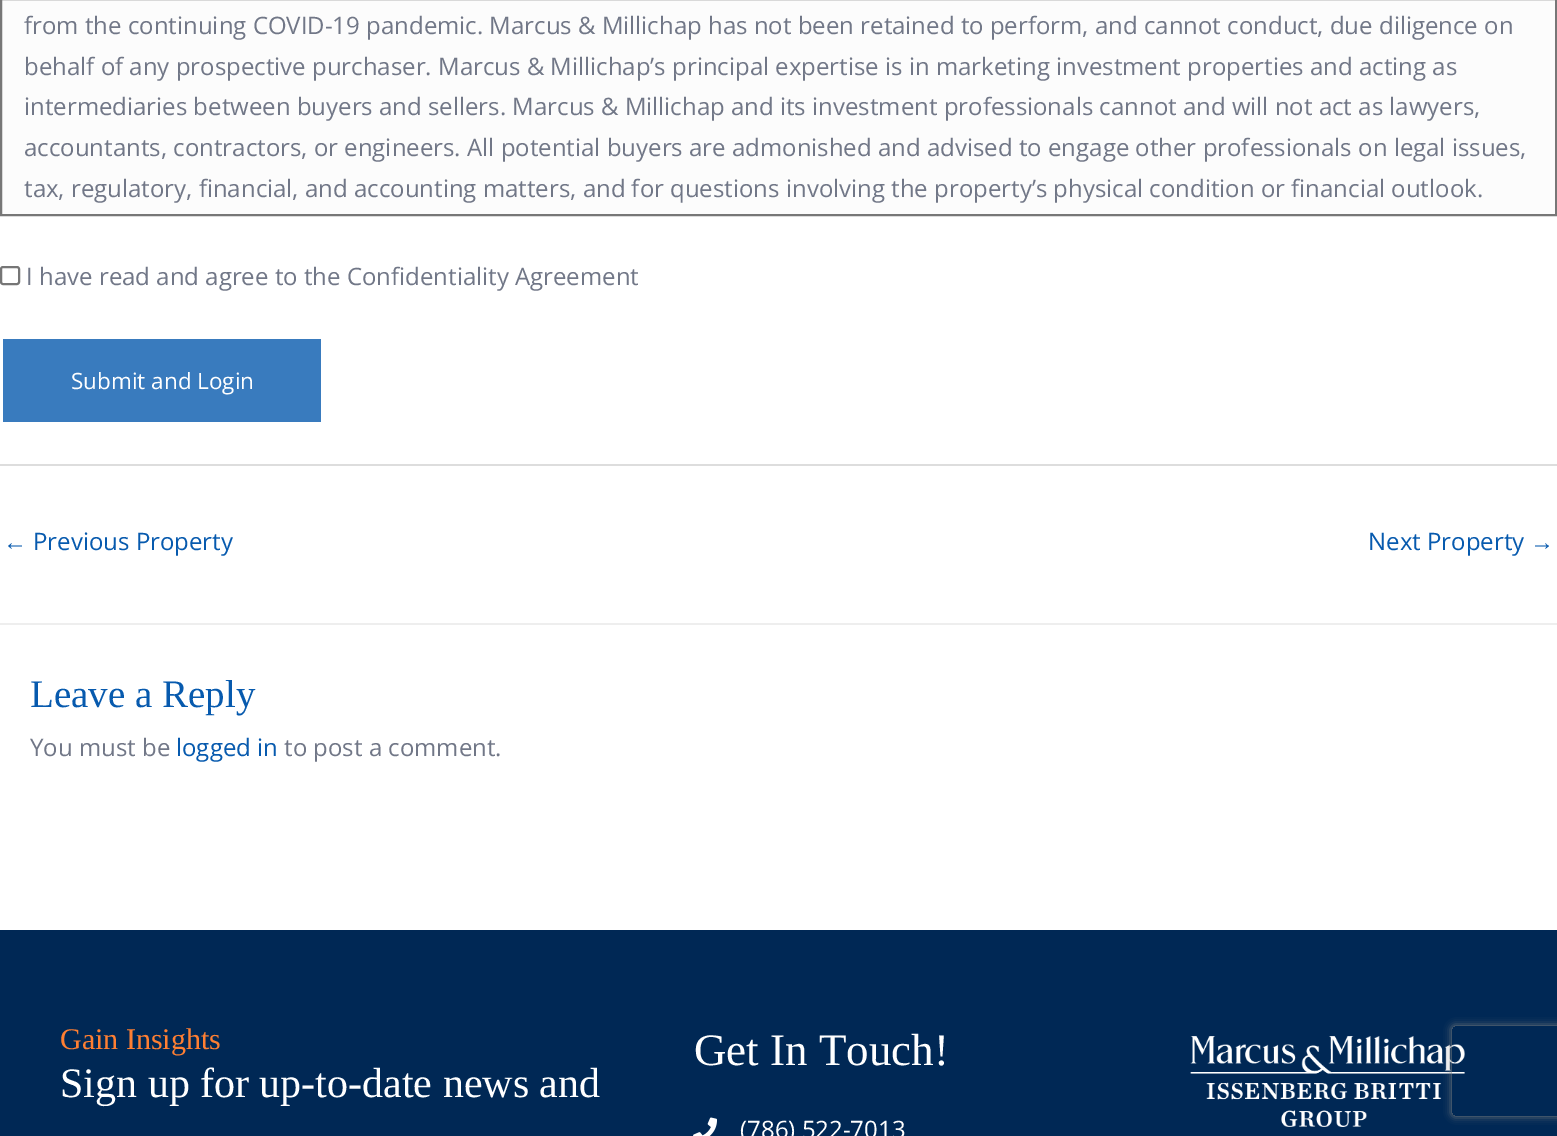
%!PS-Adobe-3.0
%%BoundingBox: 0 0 1557 1136
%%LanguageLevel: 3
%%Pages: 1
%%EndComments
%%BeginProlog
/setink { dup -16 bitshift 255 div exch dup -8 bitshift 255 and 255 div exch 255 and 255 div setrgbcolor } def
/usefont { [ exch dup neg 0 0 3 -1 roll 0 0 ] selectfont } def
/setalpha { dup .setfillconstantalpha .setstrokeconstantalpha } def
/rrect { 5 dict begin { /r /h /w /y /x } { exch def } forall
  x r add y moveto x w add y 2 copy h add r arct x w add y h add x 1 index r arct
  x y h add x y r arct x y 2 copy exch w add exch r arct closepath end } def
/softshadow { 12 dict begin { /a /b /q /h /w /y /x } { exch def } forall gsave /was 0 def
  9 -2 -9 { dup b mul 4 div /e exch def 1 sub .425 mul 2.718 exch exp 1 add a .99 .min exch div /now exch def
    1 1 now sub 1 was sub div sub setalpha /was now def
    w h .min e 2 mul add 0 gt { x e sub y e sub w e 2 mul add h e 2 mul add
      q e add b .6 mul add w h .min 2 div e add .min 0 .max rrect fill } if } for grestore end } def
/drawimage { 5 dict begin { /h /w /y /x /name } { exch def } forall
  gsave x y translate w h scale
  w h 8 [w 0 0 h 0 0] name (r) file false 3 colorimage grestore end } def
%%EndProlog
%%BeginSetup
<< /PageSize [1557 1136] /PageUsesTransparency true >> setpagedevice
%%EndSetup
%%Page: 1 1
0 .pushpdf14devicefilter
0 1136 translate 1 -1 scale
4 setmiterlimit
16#FFFFFF setink
0 0 1557 1136 rectfill
16#FCFCFC setink
1 -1 moveto 1556 -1 lineto 1556 215 lineto 1 215 lineto closepath gsave fill grestore
16#777777 setink
2 setlinewidth
stroke
/OpenSans-Regular 24 usefont
16#717787 setink
[
    [(from the continuing COVID-19 pandemic. Marcus & Millichap has not been retained to perform, and cannot conduct, due diligence on) 24 34]
    [(behalf of any prospective purchaser. Marcus & Millichap’s principal expertise is in marketing investment properties and acting as) 24 75]
    [(intermediaries between buyers and sellers. Marcus & Millichap and its investment professionals cannot and will not act as lawyers,) 24 115]
    [(accountants, contractors, or engineers. All potential buyers are admonished and advised to engage other professionals on legal issues,) 24 156]
    [(tax, regulatory, financial, and accounting matters, and for questions involving the property’s physical condition or financial outlook.) 24 197]
] { aload pop moveto show } forall
16#767676 setink
1 267 18 17 2 rrect stroke
16#717787 setink
26 285 moveto (I have read and agree to the Confidentiality Agreement) show
16#397BBE setink
3 339 318 83 rectfill
/OpenSans-Regular 22.5 usefont
16#FFFFFF setink
71 389 moveto (Submit and Login) show
16#DDDDDD setink
0 464 1557 2 rectfill
/LiberationSans-Regular 24 usefont
16#075AAE setink
3 550 moveto (←) show
/OpenSans-Regular 24 usefont
33 550 moveto (Previous Property) show
1368 550 moveto (Next Property) show
/LiberationSans-Regular 24 usefont
1530 550 moveto (→) show
16#EEEEEE setink
0 623 1557 2 rectfill
/LiberationSerif-Regular 39 usefont
16#075AAE setink
30 707 moveto (Leave a Reply) show
/OpenSans-Regular 24 usefont
16#717787 setink
30 756 moveto (You must be) show
16#075AAE setink
176 756 moveto (logged in) show
16#717787 setink
284 756 moveto (to post a comment.) show
16#002855 setink
0 930 1557 206 rectfill
/LiberationSerif-Regular 30 usefont
16#FF7F32 setink
60 1049 moveto (Gain Insights) show
/LiberationSerif-Regular 42 usefont
16#FFFFFF setink
60 1097 moveto (Sign up for up-to-date news and) show
/LiberationSerif-Regular 45 usefont
694 1065 moveto (Get In Touch!) show
(img1.raw) 693 1117 24 19 drawimage
/OpenSans-Regular 24 usefont
740 1138 moveto (\(786\) 522-7013) show
(img2.raw) 1190 1036 275 91 drawimage
gsave
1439 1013 moveto 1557 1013 lineto 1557 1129 lineto 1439 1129 lineto closepath 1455 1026 moveto 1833 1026 lineto 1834.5 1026 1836 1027.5 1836 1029 curveto 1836 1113 lineto 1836 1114.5 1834.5 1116 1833 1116 curveto 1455 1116 lineto 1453.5 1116 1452 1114.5 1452 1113 curveto 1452 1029 lineto 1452 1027.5 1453.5 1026 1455 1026 curveto closepath eoclip newpath
16#808080 setink
1452 1026 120 90 3 4 1 softshadow
grestore
.poppdf14devicefilter showpage
%%EOF
